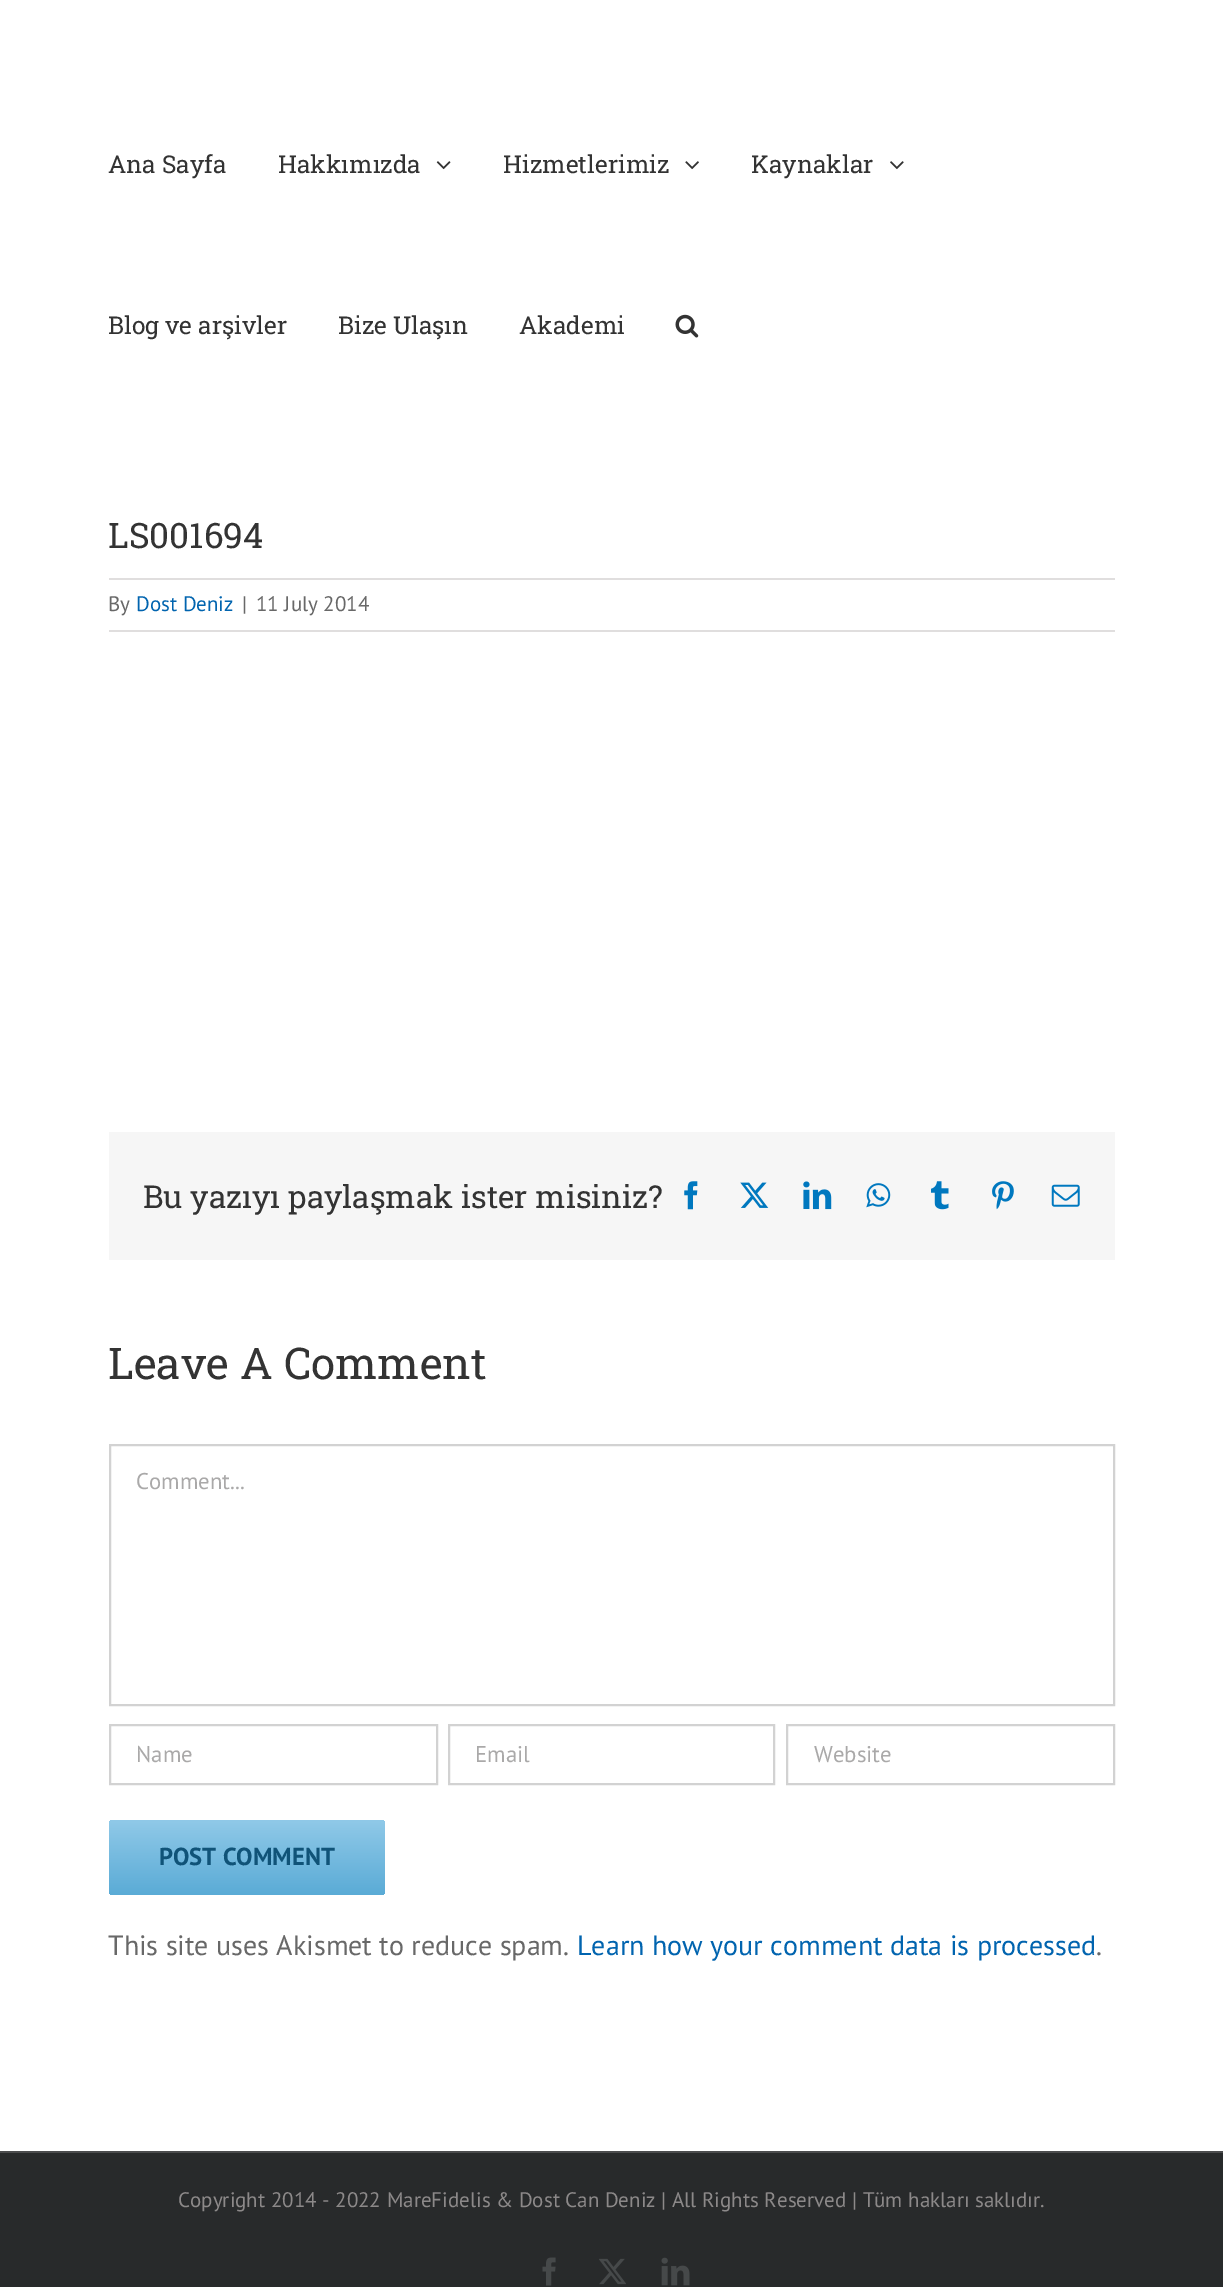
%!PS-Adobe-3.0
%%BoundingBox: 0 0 1223 2287
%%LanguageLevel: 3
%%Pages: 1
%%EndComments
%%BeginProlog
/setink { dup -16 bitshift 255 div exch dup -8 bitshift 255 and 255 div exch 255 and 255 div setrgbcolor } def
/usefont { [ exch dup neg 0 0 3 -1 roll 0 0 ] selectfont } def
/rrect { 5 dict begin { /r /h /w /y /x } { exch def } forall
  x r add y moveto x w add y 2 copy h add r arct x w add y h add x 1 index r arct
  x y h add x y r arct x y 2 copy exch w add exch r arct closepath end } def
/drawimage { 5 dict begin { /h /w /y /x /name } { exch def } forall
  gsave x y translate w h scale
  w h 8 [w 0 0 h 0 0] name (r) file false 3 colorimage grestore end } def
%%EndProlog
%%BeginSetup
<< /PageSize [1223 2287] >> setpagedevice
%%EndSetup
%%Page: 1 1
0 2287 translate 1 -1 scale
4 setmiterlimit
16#FFFFFF setink
0 0 1223 2287 rectfill
/RobotoSlab-Regular 24.5 usefont
16#333333 setink
108 173 moveto (Ana Sayfa) show
278 173 moveto (Hakkımızda) show
(img1.raw) 436 161 15 9 drawimage
503 173 moveto (Hizmetlerimiz) show
(img2.raw) 685 161 14 9 drawimage
751 173 moveto (Kaynaklar) show
(img3.raw) 890 161 14 9 drawimage
[
    [(Blog ve arşivler) 108 334]
    [(Bize Ulaşın) 338 334]
    [(Akademi) 519 334]
] { aload pop moveto show } forall
(img4.raw) 675 314 24 24 drawimage
/RobotoSlab-Regular 35 usefont
108 548 moveto (LS001694) show
16#E0DEDE setink
109 578 1006 2 rectfill
109 630 1006 2 rectfill
/PTSans-Regular 21 usefont
16#686868 setink
108 611 moveto (By) show
16#0164AF setink
136 611 moveto (Dost Deniz) show
16#686868 setink
242 611 moveto (|) show
256 611 moveto (11 July 2014) show
16#F6F6F6 setink
109 1132 1006 128 rectfill
/RobotoSlab-Regular 31.5 usefont
16#333333 setink
143 1208 moveto (Bu yazıyı paylaşmak ister misiniz?) show
(img5.raw) 684 1181 14 29 drawimage
(img6.raw) 740 1182 29 26 drawimage
(img7.raw) 803 1181 29 29 drawimage
(img8.raw) 866 1183 25 25 drawimage
(img9.raw) 931 1181 18 29 drawimage
(img10.raw) 992 1181 22 29 drawimage
(img11.raw) 1051 1184 29 23 drawimage
/RobotoSlab-Regular 43.75 usefont
108 1379 moveto (Leave A Comment) show
16#D2D2D2 setink
2 setlinewidth
110 1445 1004 260 rectstroke
/PTSans-Regular 22.75 usefont
16#AAA9A9 setink
136 1489 moveto (Comment...) show
16#D2D2D2 setink
110 1725 327 59 rectstroke
16#AAA9A9 setink
136 1762 moveto (Name) show
16#D2D2D2 setink
449 1725 325 59 rectstroke
16#AAA9A9 setink
475 1762 moveto (Email) show
16#D2D2D2 setink
787 1725 327 59 rectstroke
16#AAA9A9 setink
814 1762 moveto (Website) show
gsave 109 1820 276 75 4 rrect clip newpath
<< /ShadingType 2 /ColorSpace /DeviceRGB /Coords [247 1820 247 1895] /Extend [true true] /Function << /FunctionType 2 /Domain [0 1] /C0 [0.565 0.788 0.91] /C1 [0.353 0.671 0.839] /N 1 >> >> shfill grestore
/PTSans-Bold 24.5 usefont
16#105378 setink
159 1865 moveto (POST COMMENT) show
/PTSans-Regular 28 usefont
16#686868 setink
108 1955 moveto (This site uses Akismet to reduce spam.) show
16#0164AF setink
577 1955 moveto (Learn how your comment data is processed) show
16#686868 setink
1096 1955 moveto (.) show
16#282A2B setink
0 2153 1223 134 rectfill
16#4B4C4D setink
0 2151 1223 2 rectfill
/PTSans-Regular 21 usefont
16#8C8989 setink
178 2207 moveto (Copyright 2014 - 2022 MareFidelis & Dost Can Deniz | All Rights Reserved | Tüm hakları saklıdır.) show
(img12.raw) 542 2257 14 29 drawimage
(img13.raw) 599 2258 27 27 drawimage
(img14.raw) 661 2257 29 29 drawimage
showpage
%%EOF
